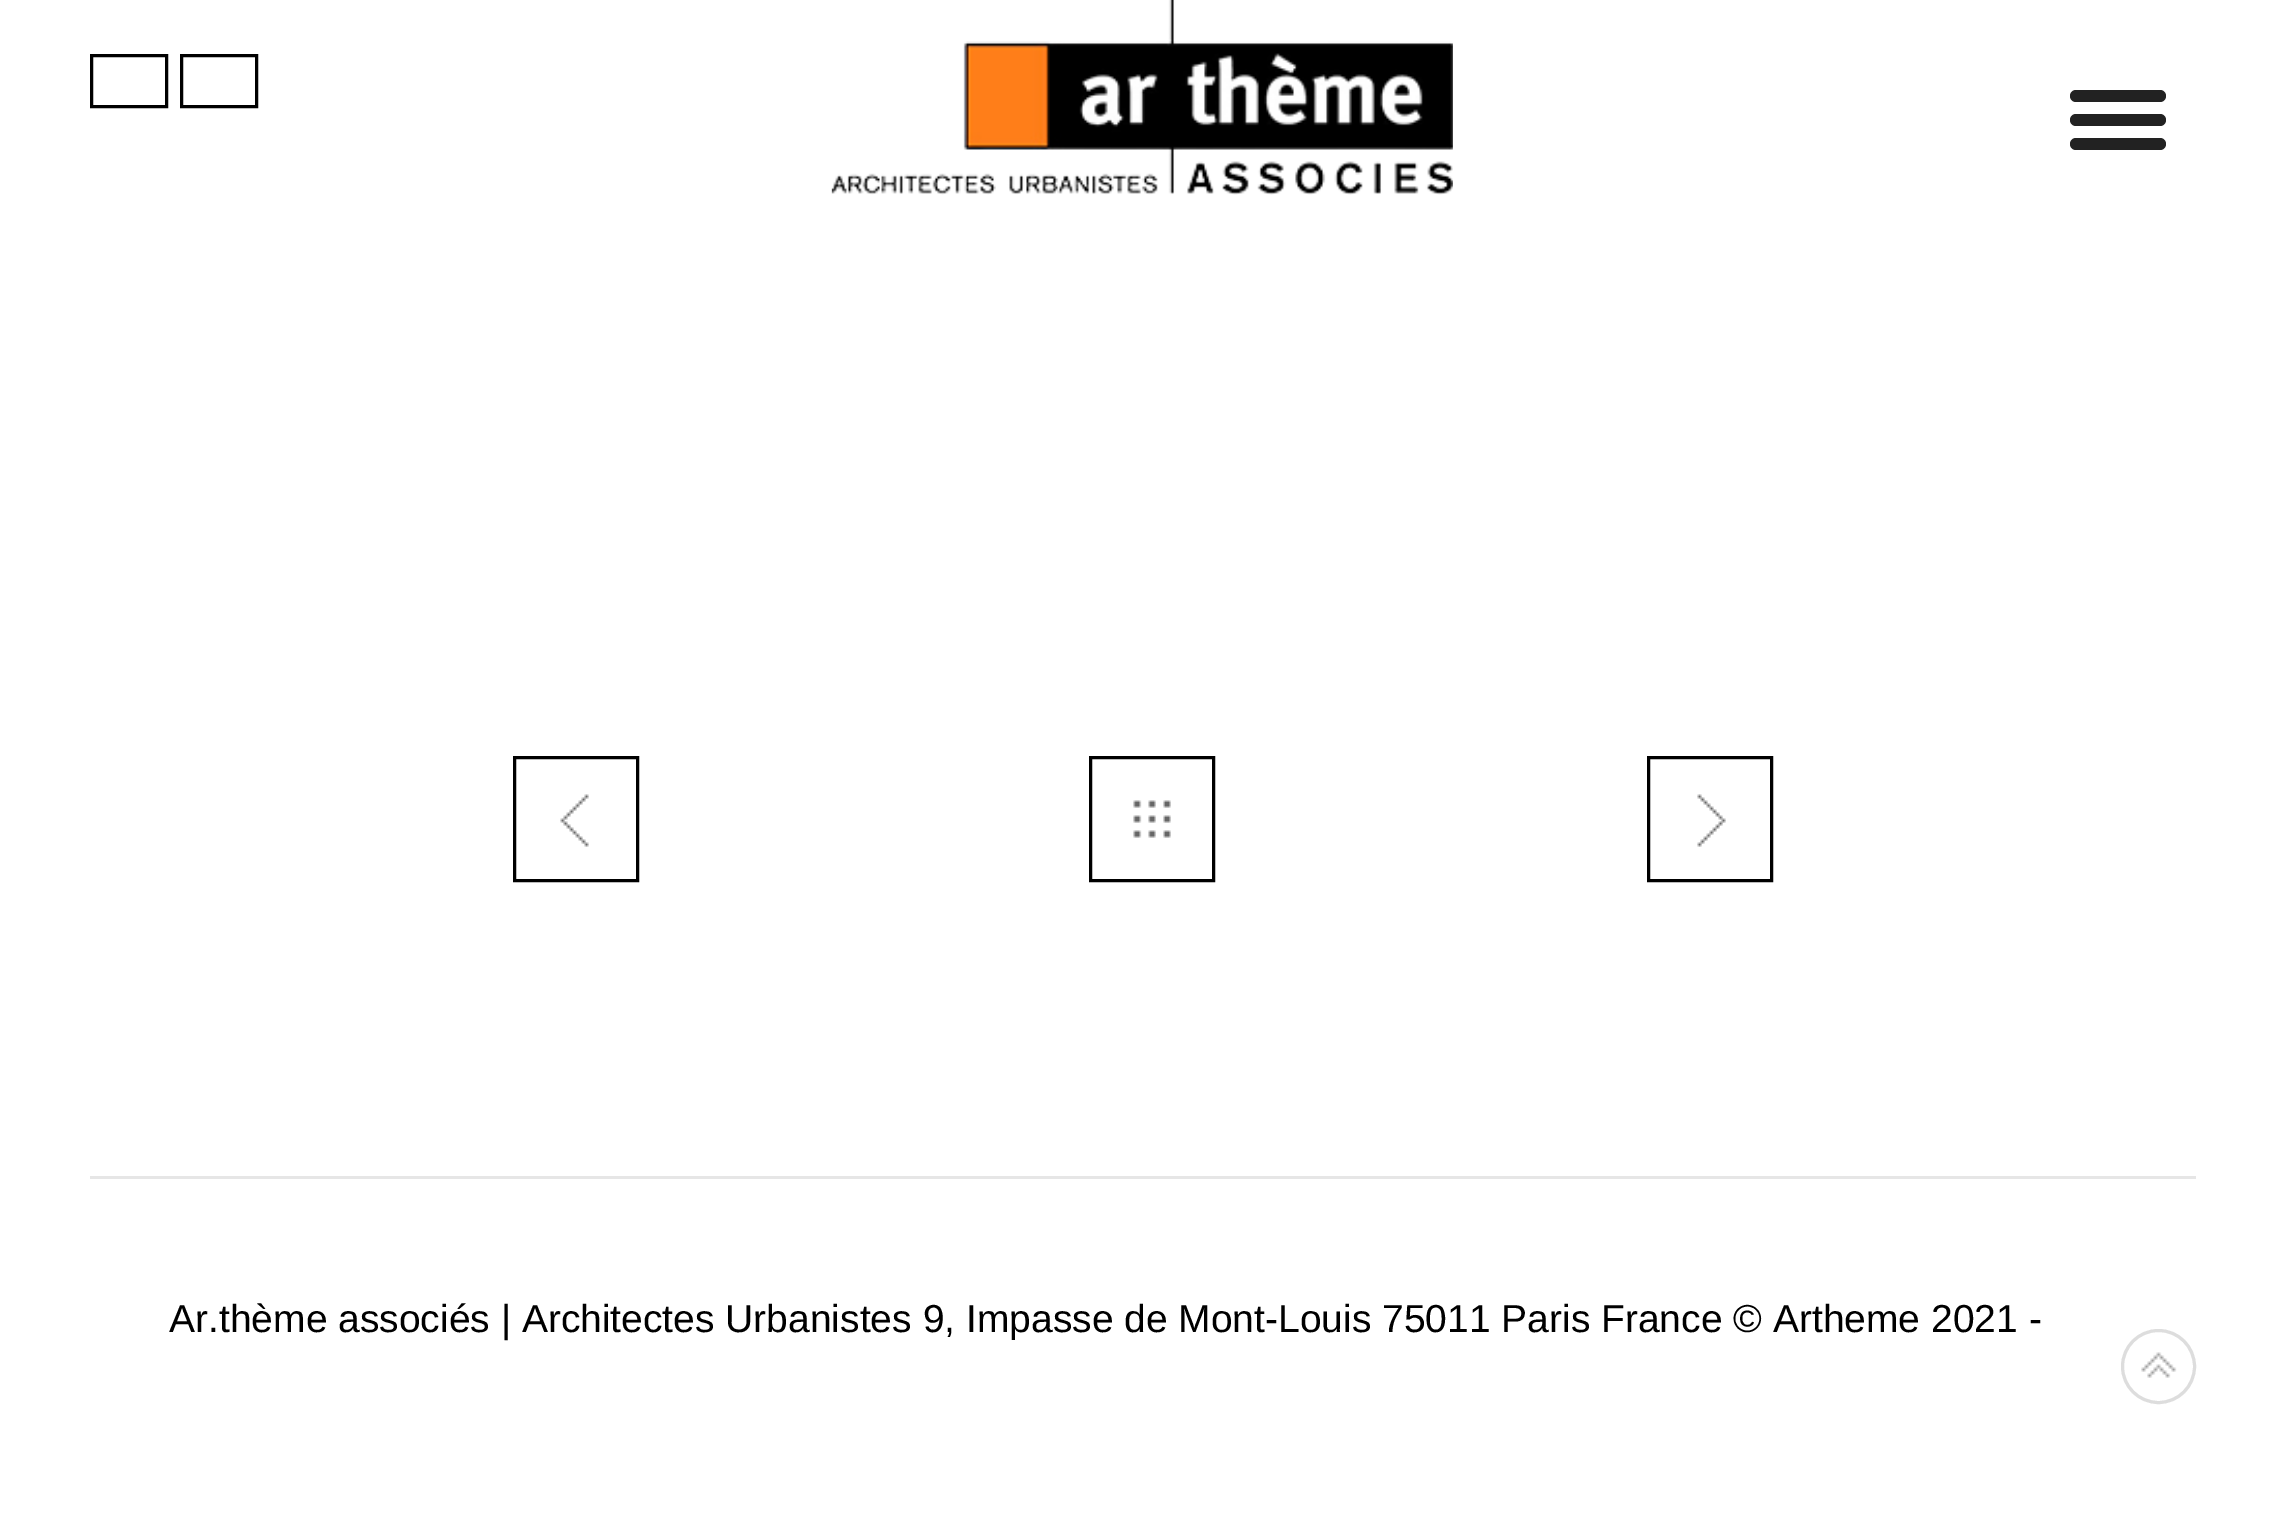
%!PS-Adobe-3.0
%%BoundingBox: 0 0 2285 1537
%%LanguageLevel: 3
%%Pages: 1
%%EndComments
%%BeginProlog
/setink { dup -16 bitshift 255 div exch dup -8 bitshift 255 and 255 div exch 255 and 255 div setrgbcolor } def
/usefont { [ exch dup neg 0 0 3 -1 roll 0 0 ] selectfont } def
/disc { newpath 0 360 arc closepath } def
/rrect { 5 dict begin { /r /h /w /y /x } { exch def } forall
  x r add y moveto x w add y 2 copy h add r arct x w add y h add x 1 index r arct
  x y h add x y r arct x y 2 copy exch w add exch r arct closepath end } def
/drawimage { 5 dict begin { /h /w /y /x /name } { exch def } forall
  gsave x y translate w h scale
  w h 8 [w 0 0 h 0 0] name (r) file false 3 colorimage grestore end } def
%%EndProlog
%%BeginSetup
<< /PageSize [2285 1537] >> setpagedevice
%%EndSetup
%%Page: 1 1
0 1537 translate 1 -1 scale
4 setmiterlimit
16#FFFFFF setink
0 0 2285 1537 rectfill
16#000000 setink
3 setlinewidth
91.5 55.5 75 51 rectstroke
181.5 55.5 75 51 rectstroke
(img1.raw) 831 0 622 195 drawimage
16#222222 setink
2070 90 96 12 6 rrect fill
2070 114 96 12 6 rrect fill
2070 138 96 12 6 rrect fill
(img2.raw) 560 794 29 53 drawimage
16#000000 setink
514.5 757.5 123 123 rectstroke
(img3.raw) 1133 800 38 38 drawimage
1090.5 757.5 123 123 rectstroke
(img4.raw) 1697 794 29 53 drawimage
1648.5 757.5 123 123 rectstroke
16#E6E6E6 setink
90 1176 2106 3 rectfill
/LiberationSans-Regular 39 usefont
16#000000 setink
169 1332 moveto (Ar.thème associés | Architectes Urbanistes 9, Impasse de Mont-Louis 75011 Paris France © Artheme 2021 -) show
(img5.raw) 2141 1352 36 26 drawimage
16#DDDDDD setink
2158.5 1366.5 36 disc stroke
showpage
%%EOF
